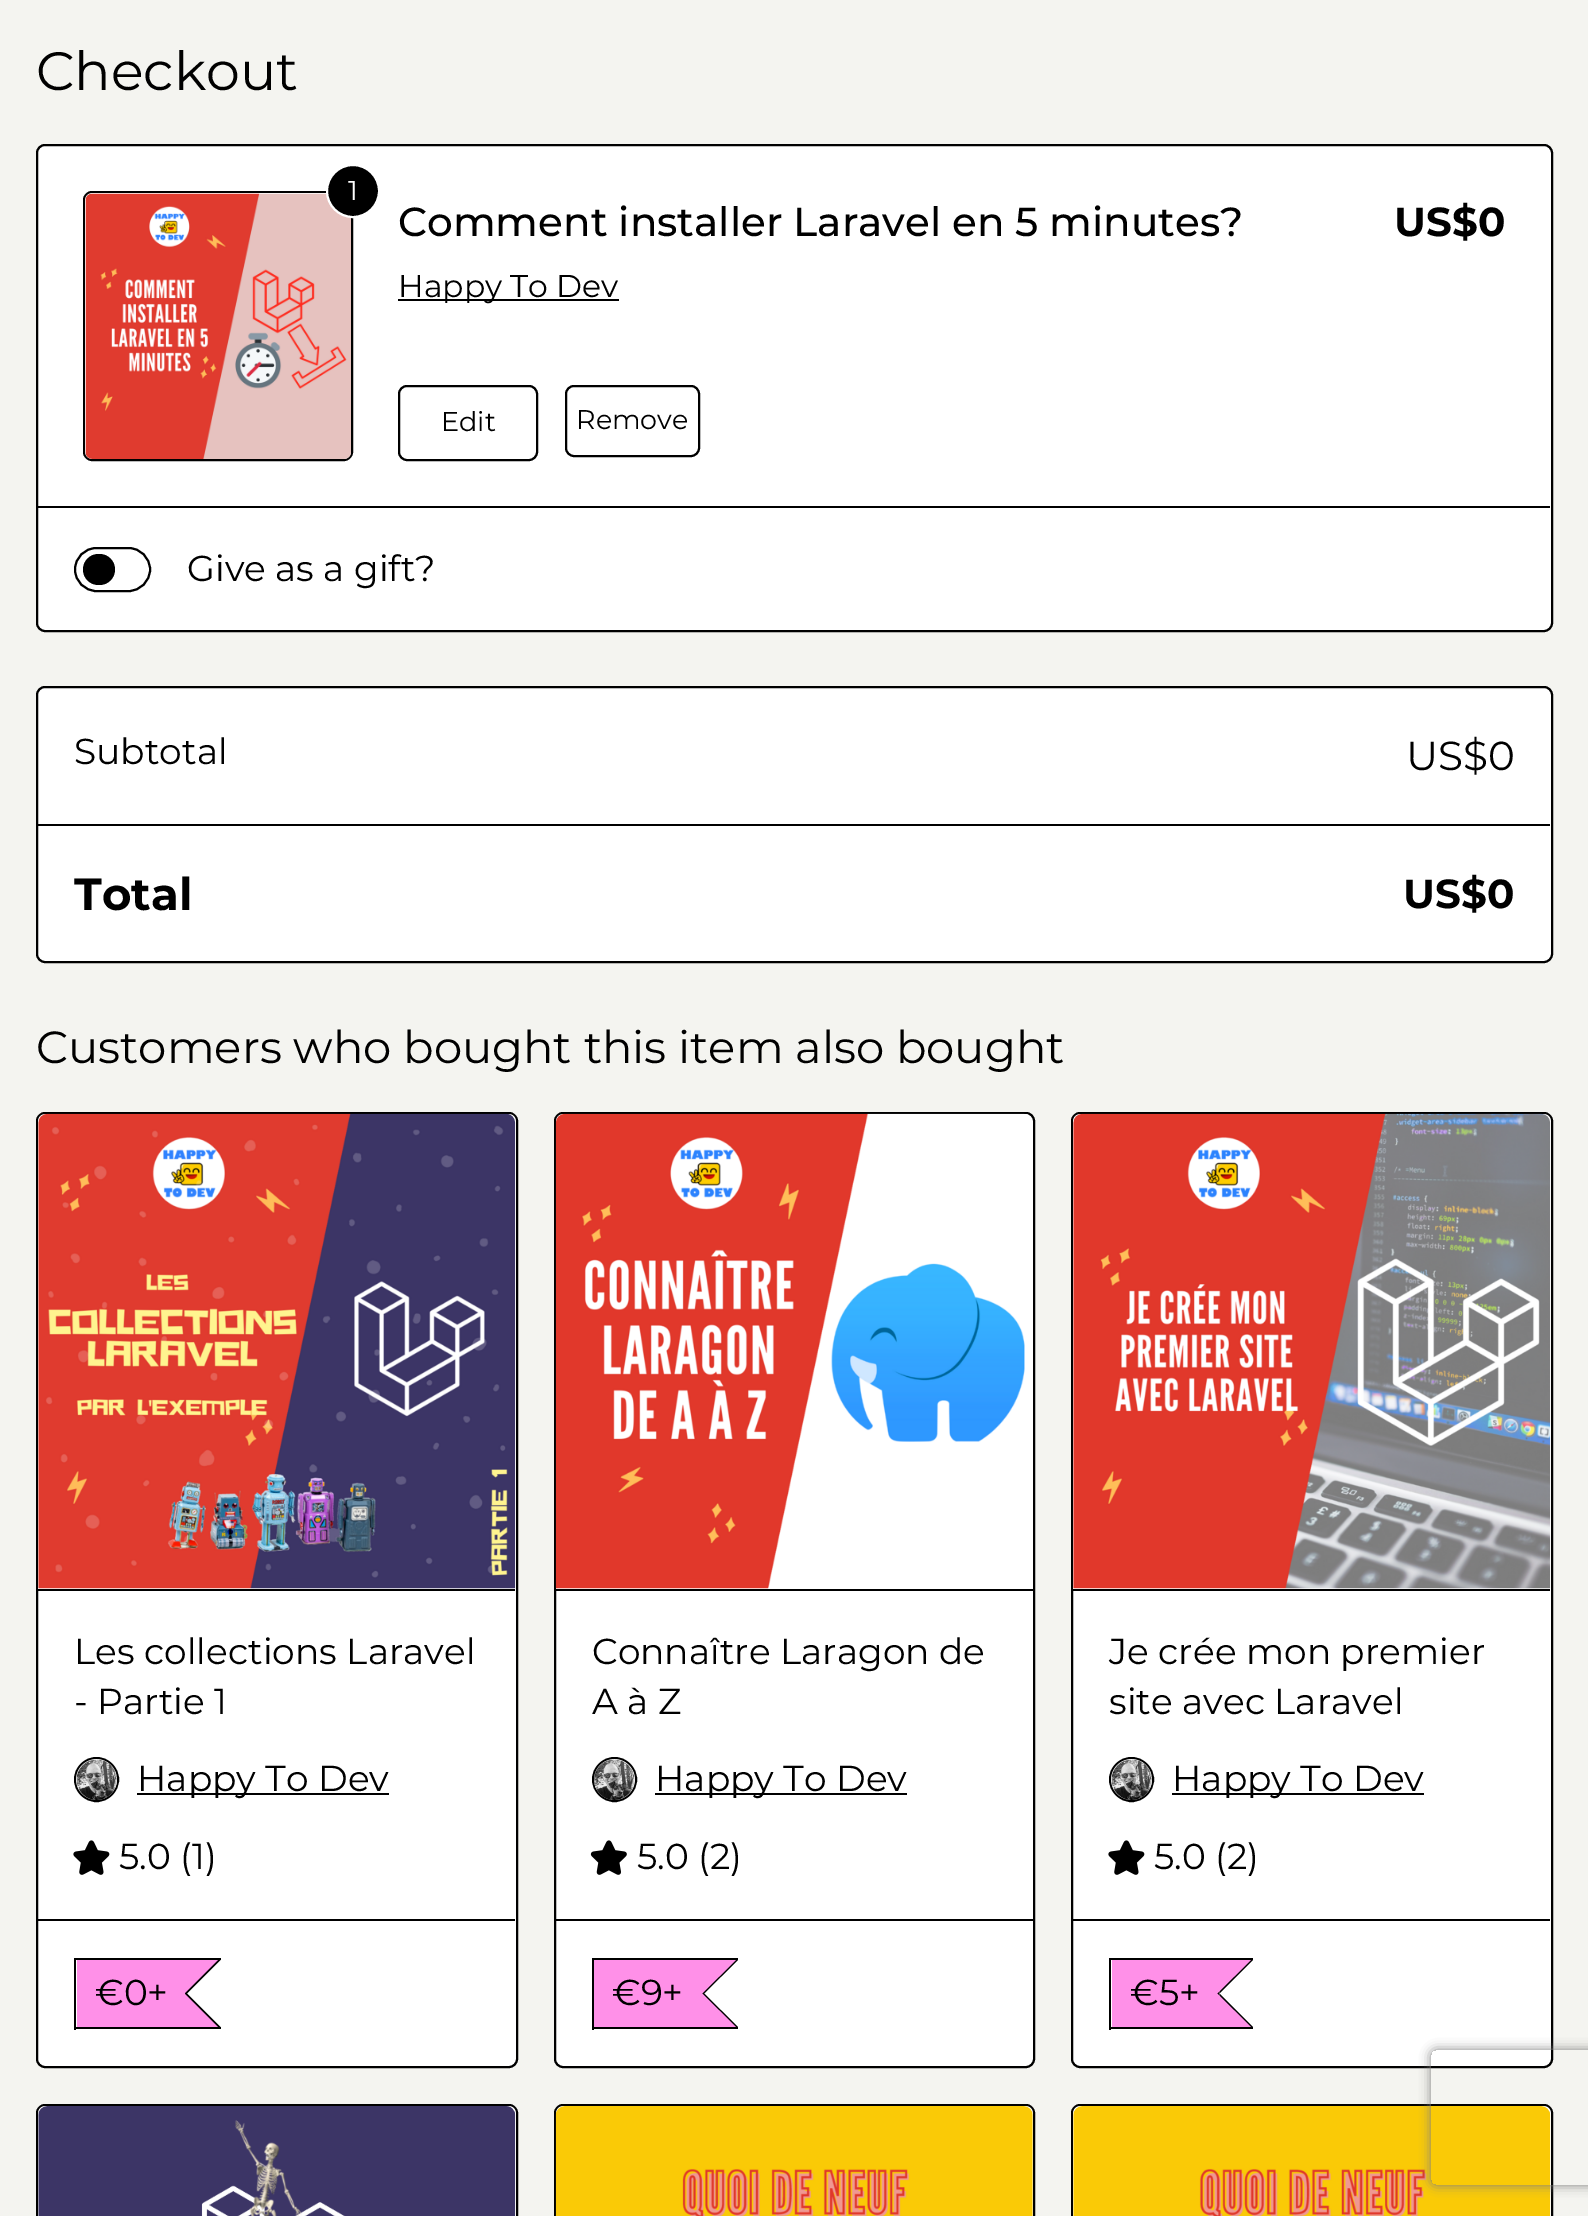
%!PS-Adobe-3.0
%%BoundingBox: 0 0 1588 2216
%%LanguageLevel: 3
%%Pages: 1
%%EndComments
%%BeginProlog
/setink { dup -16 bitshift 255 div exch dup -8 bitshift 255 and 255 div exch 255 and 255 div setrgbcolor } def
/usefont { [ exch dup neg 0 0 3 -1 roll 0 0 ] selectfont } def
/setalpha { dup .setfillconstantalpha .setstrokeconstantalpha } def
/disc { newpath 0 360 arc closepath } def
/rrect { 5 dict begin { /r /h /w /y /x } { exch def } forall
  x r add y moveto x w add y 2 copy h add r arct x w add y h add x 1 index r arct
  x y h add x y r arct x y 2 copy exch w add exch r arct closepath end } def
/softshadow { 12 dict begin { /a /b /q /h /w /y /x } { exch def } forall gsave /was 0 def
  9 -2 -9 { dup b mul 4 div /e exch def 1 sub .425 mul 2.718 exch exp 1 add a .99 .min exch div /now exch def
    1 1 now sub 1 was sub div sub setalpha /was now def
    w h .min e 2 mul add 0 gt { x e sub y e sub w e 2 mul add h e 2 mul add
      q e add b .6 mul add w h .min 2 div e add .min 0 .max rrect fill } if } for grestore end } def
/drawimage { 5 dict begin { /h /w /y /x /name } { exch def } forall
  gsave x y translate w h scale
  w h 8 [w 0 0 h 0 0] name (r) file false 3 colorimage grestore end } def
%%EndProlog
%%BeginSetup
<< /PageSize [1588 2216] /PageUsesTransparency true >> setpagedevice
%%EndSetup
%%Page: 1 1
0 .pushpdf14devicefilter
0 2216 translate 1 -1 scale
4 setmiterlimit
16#F4F4F0 setink
0 0 1588 2216 rectfill
/Montserrat-Regular 54 usefont
16#000000 setink
36 90 moveto (Checkout) show
16#FFFFFF setink
37 145 1515 486 8 rrect gsave fill grestore
16#000000 setink
2 setlinewidth
stroke
84 192 268 268 8 rrect stroke
(img1.raw) 85 193 266 266 drawimage
353 191 26 disc gsave fill grestore
16#FFFFFF setink
stroke
/Montserrat-Regular 27 usefont
348 200 moveto (1) show
/Montserrat-Medium 40.5 usefont
16#000000 setink
398 236 moveto (Comment installer Laravel en 5 minutes?) show
398 299 221 2 rectfill
/Montserrat-Regular 31.5 usefont
398 297 moveto (Happy To Dev) show
399 386 138 74 8 rrect stroke
/Montserrat-Regular 27 usefont
441 431 moveto (Edit) show
566 386 133 70 8 rrect stroke
576 429 moveto (Remove) show
/Montserrat-Bold 40.5 usefont
1394 236 moveto (US$0) show
38 506 1512 2 rectfill
75 548 75 43 21.5 rrect stroke
83 554 32 31 15.5 rrect fill
/Montserrat-Regular 36 usefont
187 581 moveto (Give as a gift?) show
16#FFFFFF setink
37 687 1515 275 8 rrect gsave fill grestore
16#000000 setink
stroke
74 764 moveto (Subtotal) show
/Montserrat-Regular 40.5 usefont
1406 770 moveto (US$0) show
38 824 1512 2 rectfill
/Montserrat-Bold 45 usefont
74 910 moveto (Total) show
/Montserrat-Bold 40.5 usefont
1403 908 moveto (US$0) show
/Montserrat-Regular 45 usefont
36 1063 moveto (Customers who bought this item also bought) show
16#FFFFFF setink
37 1113 480 954 8 rrect gsave fill grestore
16#000000 setink
stroke
38 1589 477 2 rectfill
(img2.raw) 38 1113 478 476 drawimage
38 1919 477 2 rectfill
/Montserrat-Regular 36 usefont
74 1664 moveto (Les collections Laravel) show
74 1714 moveto (- Partie 1) show
96.5 1779.5 21.5 disc stroke
(img3.raw) 76 1759 41 41 drawimage
137 1793 252 2 rectfill
137 1791 moveto (Happy To Dev) show
(img4.raw) 73 1840 37 35 drawimage
119 1869 moveto (5.0) show
180 1869 moveto (\(1\)) show
[
    [74 1958 147 2 16#000000]
    [74 2027 147 2 16#000000]
    [74 1958 2 72 16#000000]
    [77 1960 108 67 16#FF90E8]
] { aload pop setink rectfill } forall
16#000000 setink
184.5 1960 moveto 220.5 1960 lineto 187 1993.5 lineto closepath fill
220.5 2027 moveto 184.5 2027 lineto 187 1993.5 lineto closepath fill
185 1991 2 5 rectfill
16#FF90E8 setink
182 1960 moveto 218 1960 lineto 184.5 1993.5 lineto closepath fill
218 2027 moveto 182 2027 lineto 184.5 1993.5 lineto closepath fill
16#000000 setink
95 2005 moveto (€0+) show
16#FFFFFF setink
555 1113 479 954 8 rrect gsave fill grestore
16#000000 setink
stroke
556 1589 477 2 rectfill
(img5.raw) 555 1113 473 476 drawimage
556 1919 477 2 rectfill
592 1664 moveto (Connaître Laragon de) show
592 1714 moveto (A à Z) show
614.5 1779.5 21.5 disc stroke
(img6.raw) 594 1759 41 41 drawimage
655 1793 252 2 rectfill
655 1791 moveto (Happy To Dev) show
(img7.raw) 590 1840 37 35 drawimage
637 1869 moveto (5.0) show
698 1869 moveto (\(2\)) show
[
    [592 1958 146 2 16#000000]
    [592 2027 146 2 16#000000]
    [592 1958 2 72 16#000000]
    [594 1960 108 67 16#FF90E8]
] { aload pop setink rectfill } forall
16#000000 setink
702 1960 moveto 738 1960 lineto 704 1993.5 lineto closepath fill
738 2027 moveto 702 2027 lineto 704 1993.5 lineto closepath fill
702 1991 2 5 rectfill
16#FF90E8 setink
700 1960 moveto 736 1960 lineto 702 1993.5 lineto closepath fill
736 2027 moveto 700 2027 lineto 702 1993.5 lineto closepath fill
16#000000 setink
612 2005 moveto (€9+) show
16#FFFFFF setink
1072 1113 480 954 8 rrect gsave fill grestore
16#000000 setink
stroke
1073 1589 477 2 rectfill
(img8.raw) 1073 1113 478 476 drawimage
1073 1919 477 2 rectfill
1109 1664 moveto (Je crée mon premier) show
1109 1714 moveto (site avec Laravel) show
1131.5 1779.5 21.5 disc stroke
(img3.raw) 1111 1759 41 41 drawimage
1172 1793 252 2 rectfill
1172 1791 moveto (Happy To Dev) show
(img4.raw) 1108 1840 37 35 drawimage
1154 1869 moveto (5.0) show
1215 1869 moveto (\(2\)) show
[
    [1109 1958 144 2 16#000000]
    [1109 2027 144 2 16#000000]
    [1109 1958 2 72 16#000000]
    [1112 1960 105 67 16#FF90E8]
] { aload pop setink rectfill } forall
16#000000 setink
1217 1960 moveto 1253 1960 lineto 1219.5 1993.5 lineto closepath fill
1253 2027 moveto 1217 2027 lineto 1219.5 1993.5 lineto closepath fill
1217 1991 2 5 rectfill
16#FF90E8 setink
1215 1960 moveto 1251 1960 lineto 1217 1993.5 lineto closepath fill
1251 2027 moveto 1215 2027 lineto 1217 1993.5 lineto closepath fill
16#000000 setink
1130 2005 moveto (€5+) show
16#FFFFFF setink
45 2104 moveto 509 2104 lineto 514 2104 518 2108 518 2113 curveto 518 2216 lineto 36 2216 lineto 36 2113 lineto 36 2108 40 2104 45 2104 curveto closepath fill
16#000000 setink
37 2105 480 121 8 rrect stroke
(img9.raw) 38 2106 478 110 drawimage
16#FFFFFF setink
563 2104 moveto 1026 2104 lineto 1031 2104 1035 2108 1035 2113 curveto 1035 2216 lineto 554 2216 lineto 554 2113 lineto 554 2108 558 2104 563 2104 curveto closepath fill
16#000000 setink
555 2105 479 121 8 rrect stroke
(img10.raw) 555 2106 478 110 drawimage
16#FFFFFF setink
1080 2104 moveto 1544 2104 lineto 1549 2104 1553 2108 1553 2113 curveto 1553 2216 lineto 1071 2216 lineto 1071 2113 lineto 1071 2108 1075 2104 1080 2104 curveto closepath fill
16#000000 setink
1072 2105 480 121 8 rrect stroke
(img11.raw) 1073 2106 478 110 drawimage
gsave
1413 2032 moveto 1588 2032 lineto 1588 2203 lineto 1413 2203 lineto closepath 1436 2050 moveto 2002 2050 lineto 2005 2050 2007 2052 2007 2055 curveto 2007 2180 lineto 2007 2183 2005 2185 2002 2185 curveto 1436 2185 lineto 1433 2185 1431 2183 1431 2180 curveto 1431 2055 lineto 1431 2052 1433 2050 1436 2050 curveto closepath eoclip newpath
16#808080 setink
1431 2050 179 135 5 5.5 1 softshadow
grestore
.poppdf14devicefilter showpage
%%EOF
